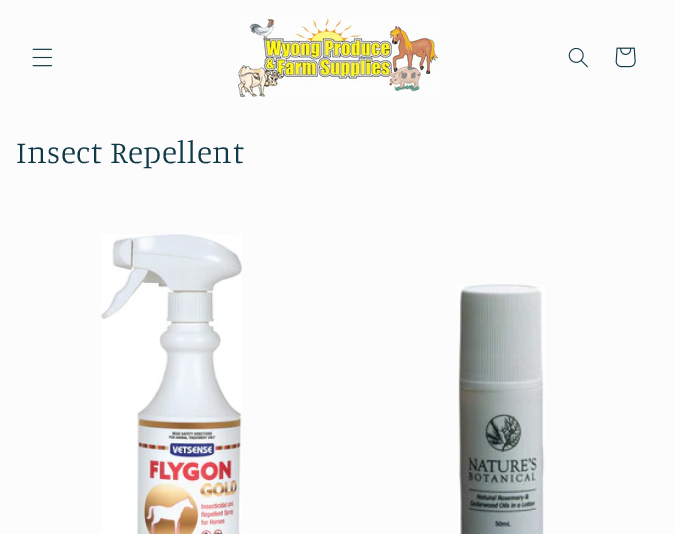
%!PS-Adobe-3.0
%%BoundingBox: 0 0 675 534
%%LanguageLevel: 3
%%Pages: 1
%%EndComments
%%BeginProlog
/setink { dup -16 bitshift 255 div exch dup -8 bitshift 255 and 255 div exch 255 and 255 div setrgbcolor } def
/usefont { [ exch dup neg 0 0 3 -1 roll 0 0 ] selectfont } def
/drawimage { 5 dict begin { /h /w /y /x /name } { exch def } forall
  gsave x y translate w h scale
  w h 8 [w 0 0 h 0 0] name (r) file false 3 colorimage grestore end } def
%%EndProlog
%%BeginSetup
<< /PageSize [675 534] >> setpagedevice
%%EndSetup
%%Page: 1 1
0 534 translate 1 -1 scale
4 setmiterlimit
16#FCFCFC setink
0 0 675 534 rectfill
(img1.raw) 32 48 20 19 drawimage
(img2.raw) 238 18 200 79 drawimage
(img3.raw) 568 47 20 21 drawimage
(img4.raw) 615 47 21 21 drawimage
/Manuale-Light 31.5 usefont
16#103948 setink
16 163 moveto 0.6 0 (Insect Repellent) ashow
(img5.raw) 101 234 141 300 drawimage
(img6.raw) 458 284 87 250 drawimage
showpage
%%EOF
